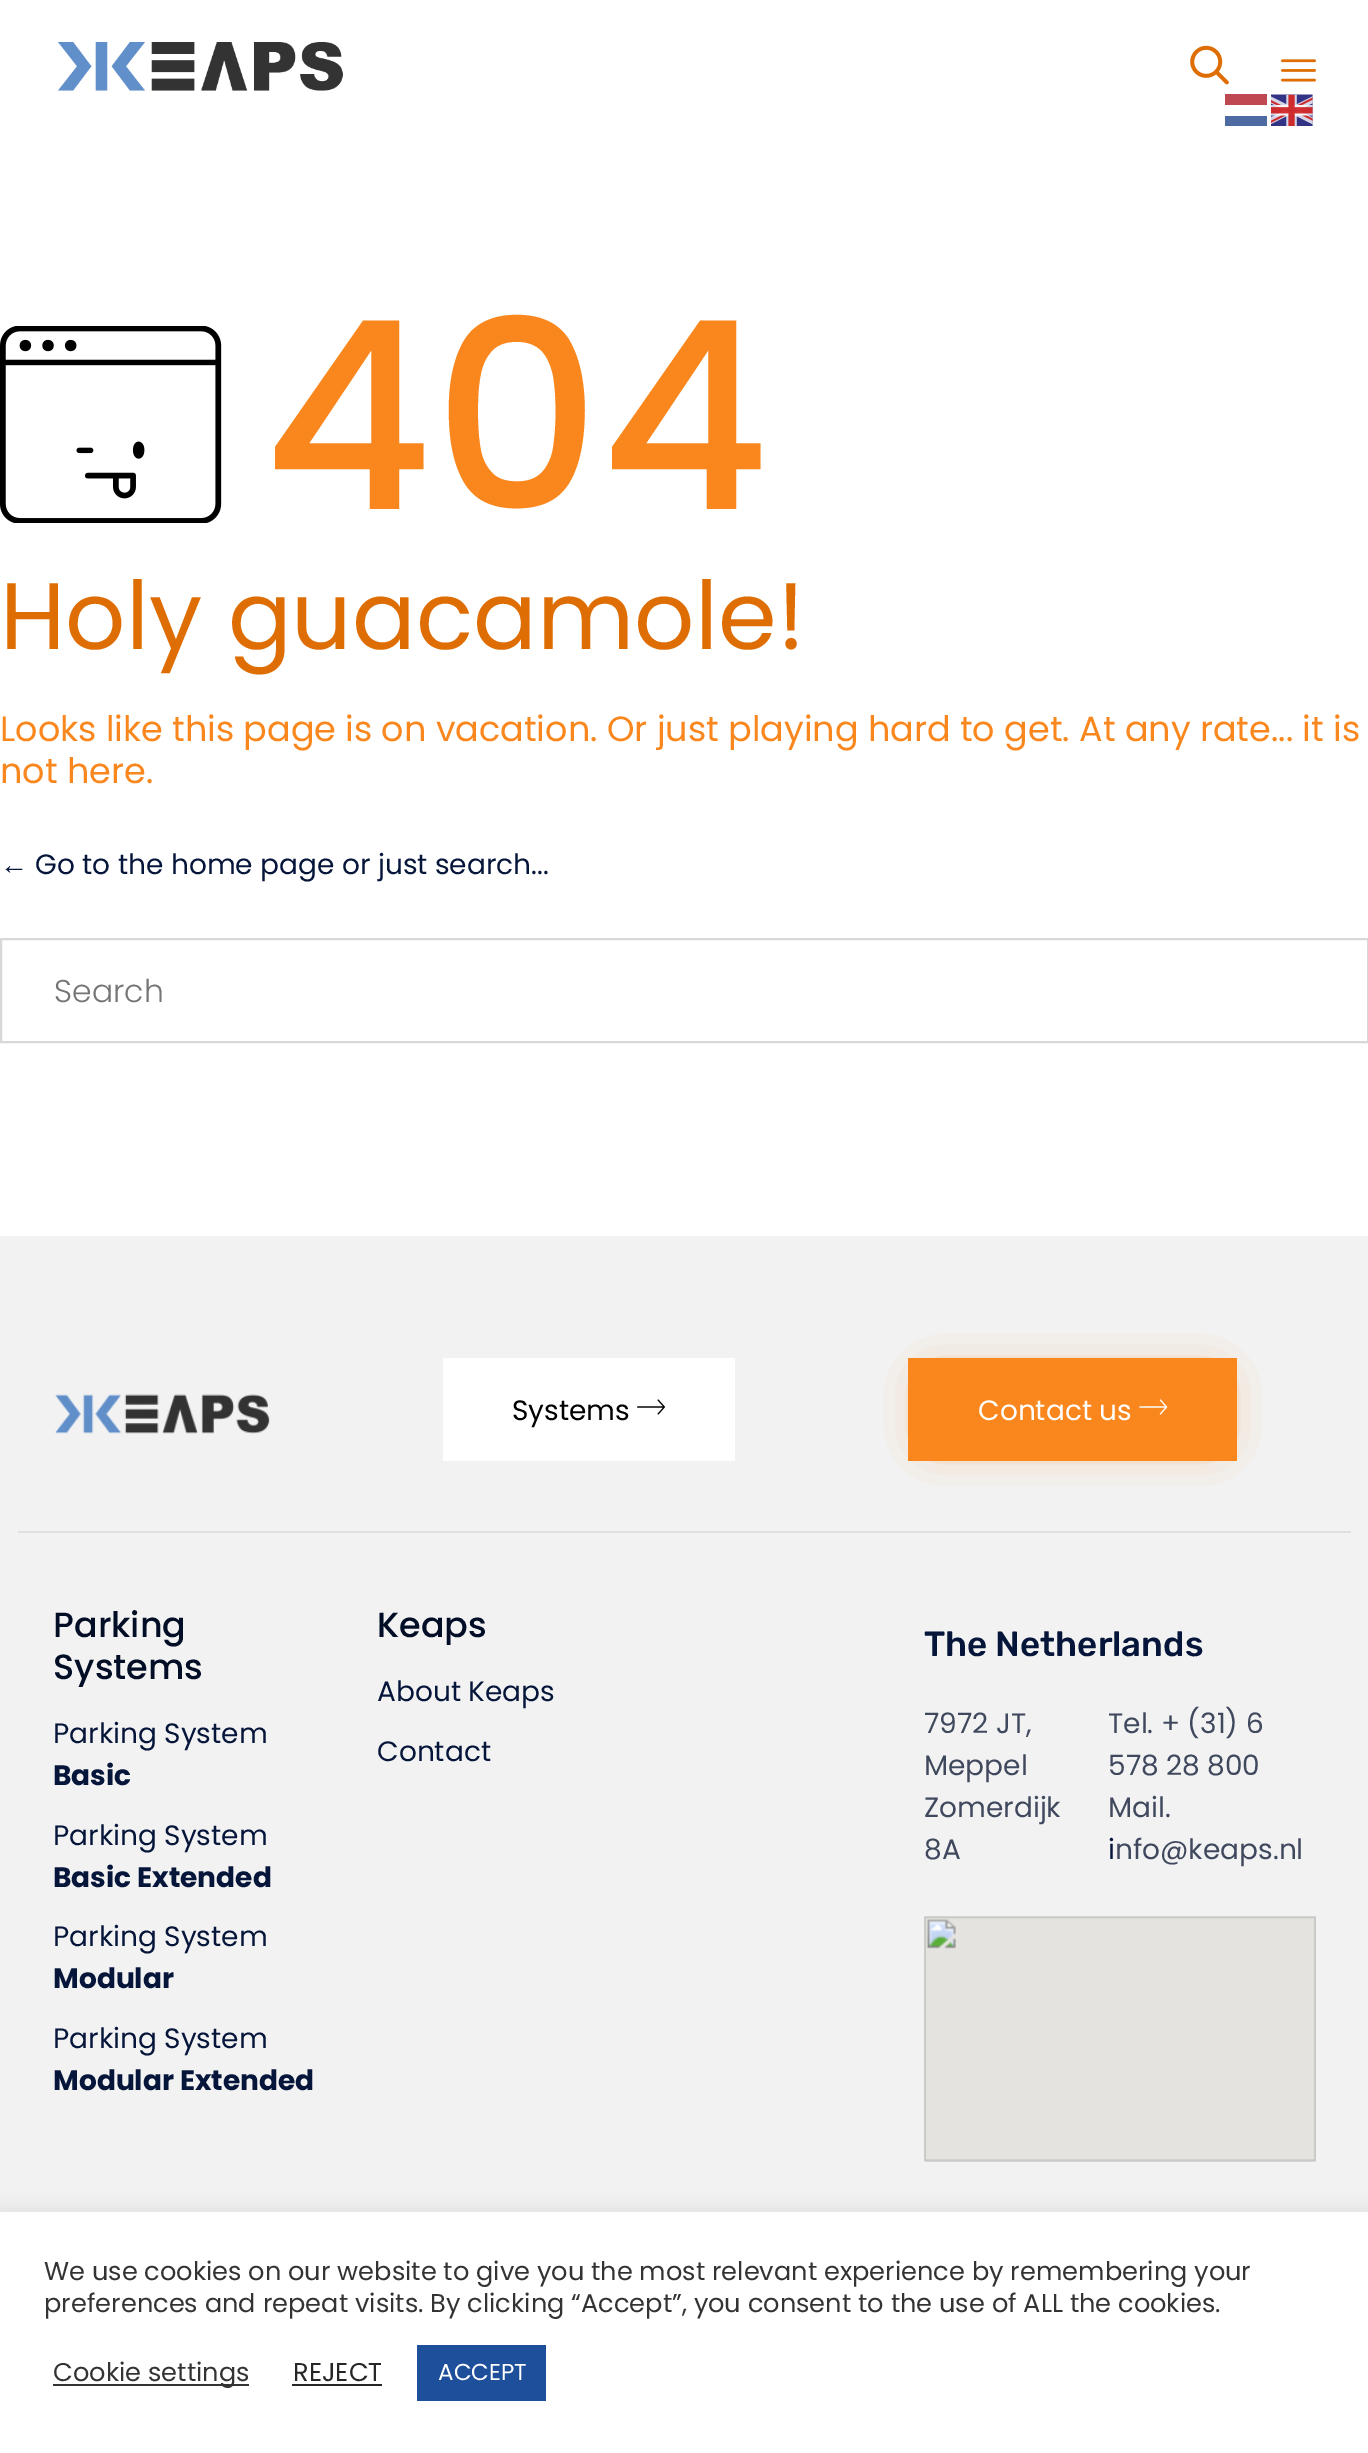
%!PS-Adobe-3.0
%%BoundingBox: 0 0 1368 2453
%%LanguageLevel: 3
%%Pages: 1
%%EndComments
%%BeginProlog
/setink { dup -16 bitshift 255 div exch dup -8 bitshift 255 and 255 div exch 255 and 255 div setrgbcolor } def
/usefont { [ exch dup neg 0 0 3 -1 roll 0 0 ] selectfont } def
/setalpha { dup .setfillconstantalpha .setstrokeconstantalpha } def
/rrect { 5 dict begin { /r /h /w /y /x } { exch def } forall
  x r add y moveto x w add y 2 copy h add r arct x w add y h add x 1 index r arct
  x y h add x y r arct x y 2 copy exch w add exch r arct closepath end } def
/softshadow { 12 dict begin { /a /b /q /h /w /y /x } { exch def } forall gsave /was 0 def
  9 -2 -9 { dup b mul 4 div /e exch def 1 sub .425 mul 2.718 exch exp 1 add a .99 .min exch div /now exch def
    1 1 now sub 1 was sub div sub setalpha /was now def
    w h .min e 2 mul add 0 gt { x e sub y e sub w e 2 mul add h e 2 mul add
      q e add b .6 mul add w h .min 2 div e add .min 0 .max rrect fill } if } for grestore end } def
/drawimage { 5 dict begin { /h /w /y /x /name } { exch def } forall
  gsave x y translate w h scale
  w h 8 [w 0 0 h 0 0] name (r) file false 3 colorimage grestore end } def
%%EndProlog
%%BeginSetup
<< /PageSize [1368 2453] /PageUsesTransparency true >> setpagedevice
%%EndSetup
%%Page: 1 1
0 .pushpdf14devicefilter
0 2453 translate 1 -1 scale
4 setmiterlimit
16#FFFFFF setink
0 0 1368 2453 rectfill
(img1.raw) 58 42 285 49 drawimage
(img2.raw) 1190 45 39 40 drawimage
(img3.raw) 1281 59 35 23 drawimage
16#BE4953 setink
1225 94 42 11 rectfill
(img4.raw) 1271 94 42 32 drawimage
16#4D6BA2 setink
1225 116 42 10 rectfill
(img5.raw) 0 326 222 197 drawimage
/Poppins-Medium 262 usefont
16#F9871D setink
263 509 moveto (404) show
/Poppins-Regular 94.5 usefont
16#DE6D03 setink
0 649 moveto (Holy guacamole!) show
/Poppins-Regular 35 usefont
16#F9871D setink
0 741 moveto (Looks like this page is on vacation. Or just playing hard to get. At any rate... it is) show
0 783 moveto (not here.) show
/LiberationSerif-Regular 28 usefont
16#06163A setink
0 874 moveto (←) show
/Poppins-Regular 28 usefont
35 874 moveto (Go to the home page or just search...) show
16#D8D8D8 setink
2 setlinewidth
1 939 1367 103 rectstroke
/Poppins-Light 31.5 usefont
16#757575 setink
54 1002 moveto (Search) show
16#F2F2F2 setink
0 1236 1368 976 rectfill
(img6.raw) 55 1394 215 40 drawimage
16#FFFFFF setink
443 1358 292 103 rectfill
/Poppins-Regular 28 usefont
16#000000 setink
512 1420 moveto (Systems) show
(img7.raw) 637 1399 28 16 drawimage
16#F9871D setink
933 1383 280 54 0 22 1 softshadow
908 1358 329 103 rectfill
16#FFFFFF setink
978 1420 moveto (Contact us) show
(img8.raw) 1139 1399 29 16 drawimage
16#E0E0E0 setink
18 1531 1333 2 rectfill
/Poppins-Medium 35 usefont
16#020D26 setink
53 1637 moveto (Parking) show
gsave
53 1603 290 84 rectclip
53 1679 moveto (Systems) show
grestore
/Poppins-Regular 28 usefont
16#06163A setink
53 1743 moveto (Parking System) show
/Poppins-Bold 28 usefont
53 1785 moveto (Basic) show
/Poppins-Regular 28 usefont
53 1845 moveto (Parking System) show
/Poppins-Bold 28 usefont
53 1887 moveto (Basic Extended) show
/Poppins-Regular 28 usefont
53 1946 moveto (Parking System) show
/Poppins-Bold 28 usefont
53 1988 moveto (Modular) show
/Poppins-Regular 28 usefont
53 2048 moveto (Parking System) show
/Poppins-Bold 28 usefont
53 2090 moveto (Modular Extended) show
gsave
378 1603 289 42 rectclip
/Poppins-Medium 35 usefont
16#020D26 setink
377 1637 moveto (Keaps) show
grestore
/Poppins-Regular 28 usefont
377 1701 moveto (About Keaps) show
377 1761 moveto (Contact) show
/Rubik-Light 35 usefont
924 1656 moveto (The Netherlands) show
/Poppins-Regular 28 usefont
16#3F485D setink
[
    [(7972 JT,) 924 1733]
    [(Meppel) 924 1775]
    [(Zomerdijk) 924 1817]
    [(8A) 924 1859]
    [(Tel. + \(31\) 6) 1108 1733]
    [(578 28 800) 1108 1775]
    [(Mail.) 1108 1817]
] { aload pop moveto show } forall
16#06163A setink
1108 1859 moveto (i) show
16#3F485D setink
1115 1859 moveto (nfo@keaps.nl) show
(img9.raw) 924 1916 392 246 drawimage
16#ACABAB setink
0 2210 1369 242 0 9 0.3 softshadow
16#FFFFFF setink
0 2212 1368 241 rectfill
/Poppins-Regular 25.65 usefont
16#333333 setink
44 2280 moveto (We use cookies on our website to give you the most relevant experience by remembering your) show
44 2312 moveto (preferences and repeat visits. By clicking “Accept”, you consent to the use of ALL the cookies.) show
53 2384 196 2 rectfill
53 2381 moveto (Cookie settings) show
16#262626 setink
293 2381 moveto (REJECT) show
292 2384 90 2 rectfill
16#1E4F9B setink
417 2345 129 56 rectfill
/Poppins-Regular 23 usefont
16#FFFFFF setink
438 2380 moveto (ACCEPT) show
.poppdf14devicefilter showpage
%%EOF
